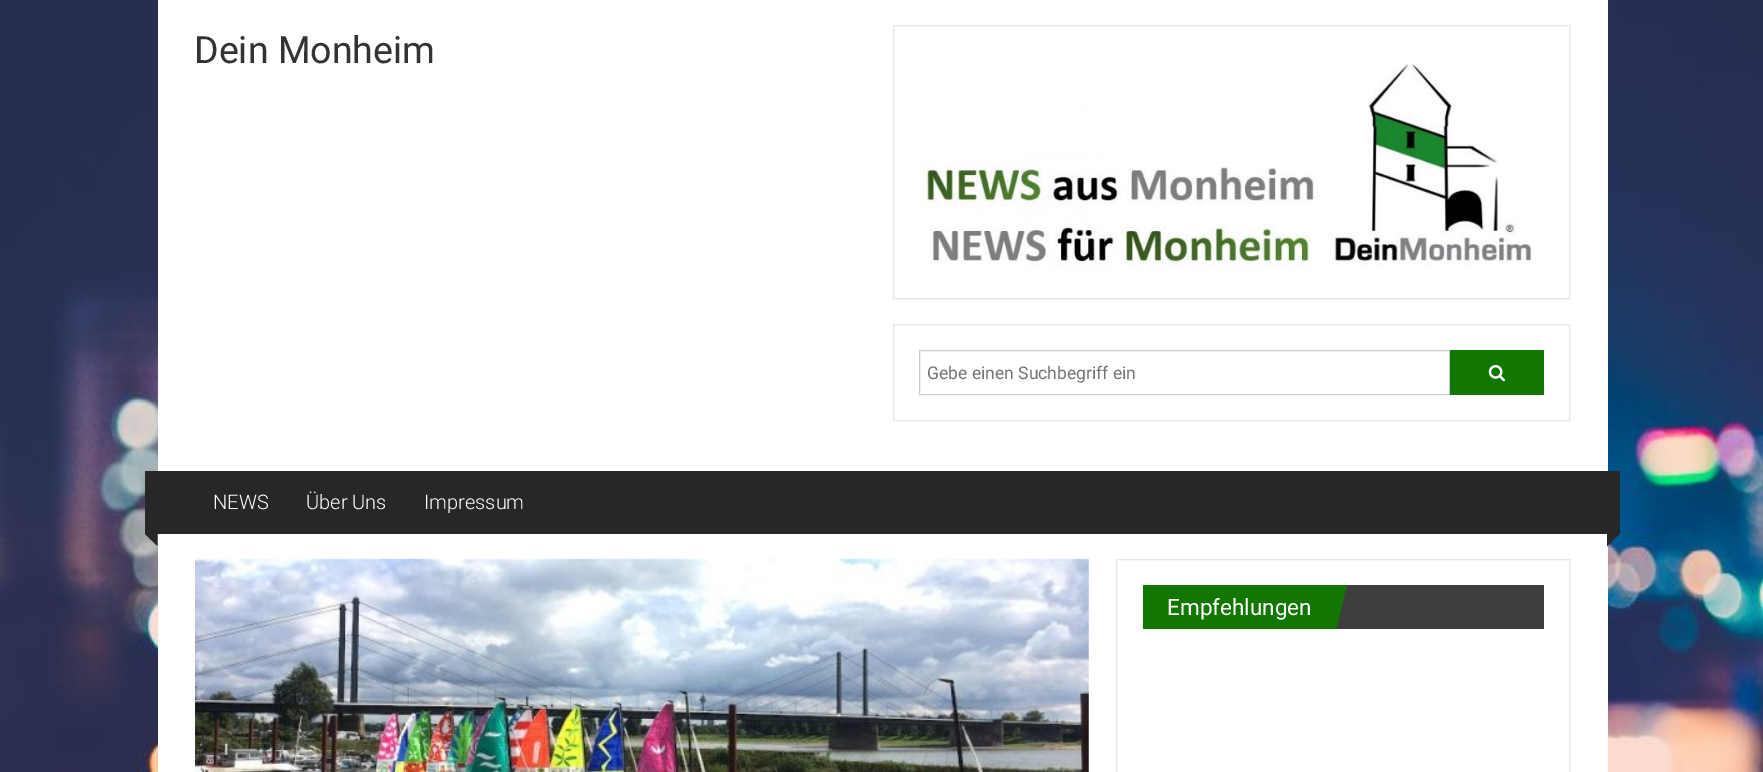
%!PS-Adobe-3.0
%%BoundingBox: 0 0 1763 772
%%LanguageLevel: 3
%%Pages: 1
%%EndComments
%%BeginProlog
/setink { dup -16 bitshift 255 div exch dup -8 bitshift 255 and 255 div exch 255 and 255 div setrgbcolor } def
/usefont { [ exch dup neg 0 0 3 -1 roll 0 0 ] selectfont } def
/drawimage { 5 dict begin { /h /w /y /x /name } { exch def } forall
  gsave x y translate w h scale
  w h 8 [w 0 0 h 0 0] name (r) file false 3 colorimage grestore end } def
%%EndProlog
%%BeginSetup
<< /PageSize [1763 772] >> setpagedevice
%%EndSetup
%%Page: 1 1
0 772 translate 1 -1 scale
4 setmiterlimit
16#FFFFFF setink
0 0 1763 772 rectfill
(img1.raw) 0 0 1763 772 drawimage
158 0 1450 772 rectfill
/Roboto-Regular 37.5 usefont
16#333333 setink
194 63 moveto (Dein Monheim) show
16#E6E6E6 setink
893.5 25.5 676 273 rectstroke
(img2.raw) 919 63 613 210 drawimage
893.5 324.5 676 96 rectstroke
16#CCCCCC setink
919.5 350.5 530 44 rectstroke
/Roboto-Regular 17.5 usefont
16#757575 setink
927 379 moveto (Gebe einen Suchbegriff ein) show
16#117700 setink
1450 350 94 45 rectfill
(img3.raw) 1488 365 17 17 drawimage
16#272727 setink
145 471 1463 63 rectfill
/Roboto-Light 20 usefont
16#FFFFFF setink
[
    [(NEWS) 213 509]
    [(Über Uns) 306 509]
    [(Impressum) 424 509]
] { aload pop moveto show } forall
16#272727 setink
157.5 521 moveto 157.5 546 lineto 145 534 lineto closepath fill
1607 546.5 moveto 1607 521.5 lineto 1619.5 534 lineto closepath fill
1608 471 12 63 rectfill
(img4.raw) 195 558 894 214 drawimage
16#E6E6E6 setink
1116.5 559.5 453 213 rectstroke
16#3E3E3E setink
1336 585 208 44 rectfill
16#117700 setink
1143 585 193 44 rectfill
gsave
1143 585 401 44 rectclip
1347 584 moveto 1337 627 lineto 1295 617 lineto 1304 574 lineto closepath fill
grestore
/Roboto-Regular 22.5 usefont
16#FFFFFF setink
1167 615 moveto (Empfehlungen) show
showpage
%%EOF
